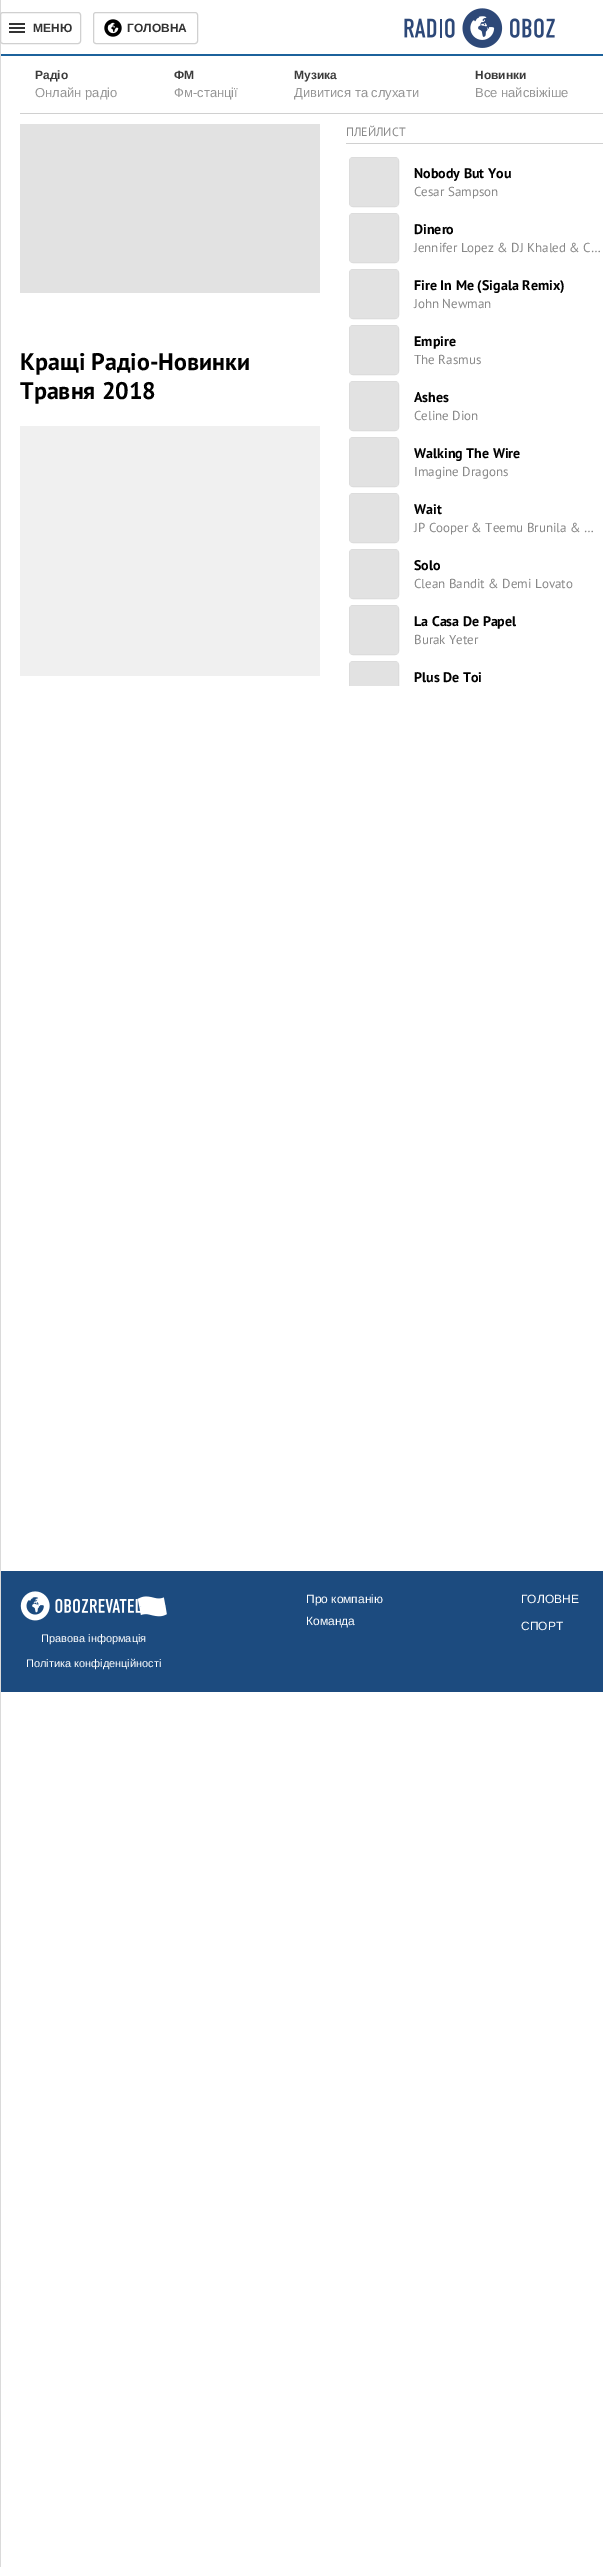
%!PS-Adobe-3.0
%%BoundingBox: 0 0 603 2567
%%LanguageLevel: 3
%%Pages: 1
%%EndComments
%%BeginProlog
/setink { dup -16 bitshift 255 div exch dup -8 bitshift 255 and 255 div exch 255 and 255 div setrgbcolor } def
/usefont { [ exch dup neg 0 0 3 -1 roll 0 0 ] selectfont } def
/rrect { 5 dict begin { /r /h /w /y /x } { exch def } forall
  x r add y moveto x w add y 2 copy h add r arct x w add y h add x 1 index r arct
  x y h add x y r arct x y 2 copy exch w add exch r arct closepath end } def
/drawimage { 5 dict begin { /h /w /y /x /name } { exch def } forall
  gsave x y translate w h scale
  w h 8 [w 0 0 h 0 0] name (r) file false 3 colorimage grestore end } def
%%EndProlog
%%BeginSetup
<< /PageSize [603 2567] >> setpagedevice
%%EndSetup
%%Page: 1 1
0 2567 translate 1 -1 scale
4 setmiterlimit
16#FFFFFF setink
0 0 603 2567 rectfill
16#1C629C setink
0 54 603 2 rectfill
16#DADADA setink
0 0 1 2567 rectfill
16#FFFFFF setink
0.5 12.5 80 31 2.5 rrect gsave fill grestore
16#D0D0D0 setink
stroke
16#333333 setink
9 23 16 2 rectfill
9 31 16 2 rectfill
/LiberationSans-Bold 12 usefont
33 32 moveto (МЕНЮ) show
9 27 16 2 rectfill
16#D0D0D0 setink
93.5 12.5 104 31 2.5 rrect stroke
(img1.raw) 104 19 18 18 drawimage
16#333333 setink
127 32 moveto (ГОЛОВНА) show
(img2.raw) 404 8 151 40 drawimage
16#D0D0D0 setink
20 113 583 1 rectfill
16#3B3B3B setink
35 79 moveto (Радіо) show
/LiberationSans-Regular 13 usefont
16#959595 setink
35 97 moveto (Онлайн радіо) show
/LiberationSans-Bold 12 usefont
16#3B3B3B setink
174 79 moveto (ФМ) show
/LiberationSans-Regular 13 usefont
16#959595 setink
174 97 moveto (Фм-станції) show
/LiberationSans-Bold 12 usefont
16#3B3B3B setink
294 79 moveto (Музика) show
/LiberationSans-Regular 13 usefont
16#959595 setink
294 97 moveto (Дивитися та слухати) show
/LiberationSans-Bold 12 usefont
16#3B3B3B setink
475 79 moveto (Новинки) show
/LiberationSans-Regular 13 usefont
16#959595 setink
475 97 moveto (Все найсвіжіше) show
16#E2E2E2 setink
20 124 300 169 rectfill
/PTSans-Bold 24 usefont
16#000000 setink
20 370 moveto (Кращі Радіо-Новинки) show
20 399 moveto (Травня 2018) show
16#F0F0F0 setink
20 426 300 250 rectfill
16#D0D0D0 setink
346 143 257 1 rectfill
/PTSans-Regular 12 usefont
16#888888 setink
346 136 moveto (ПЛЕЙЛИСТ) show
16#DCDCDC setink
349.5 157.5 49 49 3.5 rrect stroke
16#E2E2E2 setink
350 158 48 48 rectfill
/PTSans-Bold 14 usefont
16#000000 setink
414 178 moveto (Nobody But You) show
/PTSans-Regular 13 usefont
16#888888 setink
414 196 moveto (Cesar Sampson) show
16#DCDCDC setink
349.5 213.5 49 49 3.5 rrect stroke
16#E2E2E2 setink
350 214 48 48 rectfill
/PTSans-Bold 14 usefont
16#000000 setink
414 234 moveto (Dinero) show
/PTSans-Regular 13 usefont
16#888888 setink
414 252 moveto (Jennifer Lopez & DJ Khaled & C…) show
16#DCDCDC setink
349.5 269.5 49 49 3.5 rrect stroke
16#E2E2E2 setink
350 270 48 48 rectfill
/PTSans-Bold 14 usefont
16#000000 setink
414 290 moveto (Fire In Me \(Sigala Remix\)) show
/PTSans-Regular 13 usefont
16#888888 setink
414 308 moveto (John Newman) show
16#DCDCDC setink
349.5 325.5 49 49 3.5 rrect stroke
16#E2E2E2 setink
350 326 48 48 rectfill
/PTSans-Bold 14 usefont
16#000000 setink
414 346 moveto (Empire) show
/PTSans-Regular 13 usefont
16#888888 setink
414 364 moveto (The Rasmus) show
16#DCDCDC setink
349.5 381.5 49 49 3.5 rrect stroke
16#E2E2E2 setink
350 382 48 48 rectfill
/PTSans-Bold 14 usefont
16#000000 setink
414 402 moveto (Ashes) show
/PTSans-Regular 13 usefont
16#888888 setink
414 420 moveto (Celine Dion) show
16#DCDCDC setink
349.5 437.5 49 49 3.5 rrect stroke
16#E2E2E2 setink
350 438 48 48 rectfill
/PTSans-Bold 14 usefont
16#000000 setink
414 458 moveto (Walking The Wire) show
/PTSans-Regular 13 usefont
16#888888 setink
414 476 moveto (Imagine Dragons) show
16#DCDCDC setink
349.5 493.5 49 49 3.5 rrect stroke
16#E2E2E2 setink
350 494 48 48 rectfill
/PTSans-Bold 14 usefont
16#000000 setink
414 514 moveto (Wait) show
/PTSans-Regular 13 usefont
16#888888 setink
414 532 moveto (JP Cooper & Teemu Brunila & …) show
16#DCDCDC setink
349.5 549.5 49 49 3.5 rrect stroke
16#E2E2E2 setink
350 550 48 48 rectfill
/PTSans-Bold 14 usefont
16#000000 setink
414 570 moveto (Solo) show
/PTSans-Regular 13 usefont
16#888888 setink
414 588 moveto (Clean Bandit & Demi Lovato) show
16#DCDCDC setink
349.5 605.5 49 49 3.5 rrect stroke
16#E2E2E2 setink
350 606 48 48 rectfill
/PTSans-Bold 14 usefont
16#000000 setink
414 626 moveto (La Casa De Papel) show
/PTSans-Regular 13 usefont
16#888888 setink
414 644 moveto (Burak Yeter) show
gsave
346 154 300 532 rectclip
16#DCDCDC setink
349.5 661.5 49 49 3.5 rrect stroke
grestore
16#E2E2E2 setink
350 662 48 24 rectfill
/PTSans-Bold 14 usefont
16#000000 setink
414 682 moveto (Plus De Toi) show
16#1C4B7F setink
1 1571 602 121 rectfill
/LiberationSans-Regular 12 usefont
16#FFFFFF setink
[
    [(Про компанію) 306 1603]
    [(Команда) 306 1625]
    [(ГОЛОВНЕ) 521 1603]
    [(СПОРТ) 521 1630]
] { aload pop moveto show } forall
(img3.raw) 20 1591 147 30 drawimage
/LiberationSans-Regular 11 usefont
41 1642 moveto (Правова інформація) show
26 1667 moveto (Політика конфіденційності) show
showpage
%%EOF
